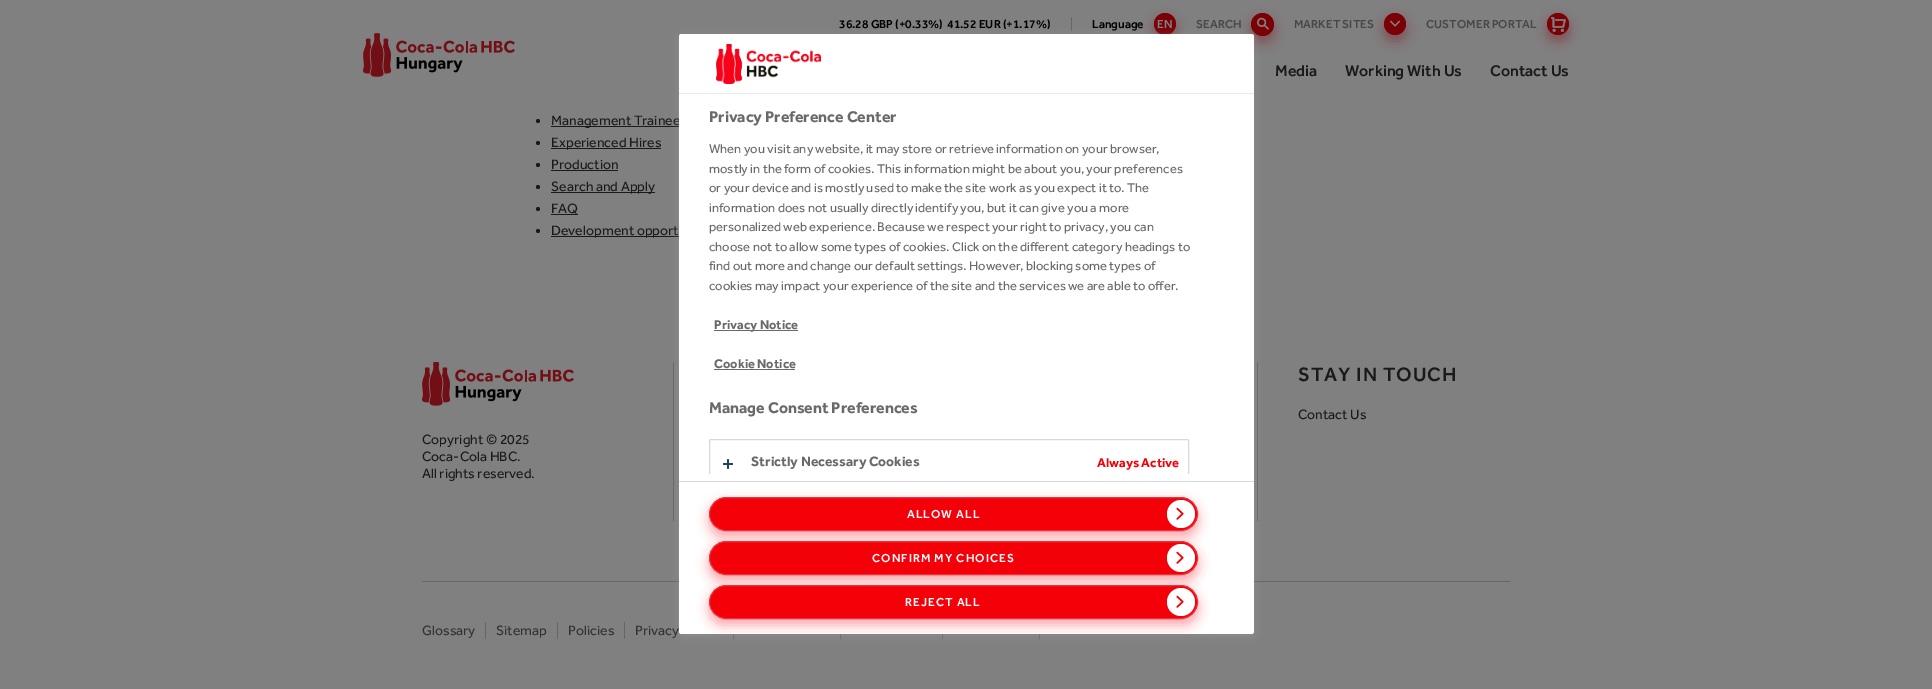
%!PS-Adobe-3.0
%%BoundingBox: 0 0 1932 689
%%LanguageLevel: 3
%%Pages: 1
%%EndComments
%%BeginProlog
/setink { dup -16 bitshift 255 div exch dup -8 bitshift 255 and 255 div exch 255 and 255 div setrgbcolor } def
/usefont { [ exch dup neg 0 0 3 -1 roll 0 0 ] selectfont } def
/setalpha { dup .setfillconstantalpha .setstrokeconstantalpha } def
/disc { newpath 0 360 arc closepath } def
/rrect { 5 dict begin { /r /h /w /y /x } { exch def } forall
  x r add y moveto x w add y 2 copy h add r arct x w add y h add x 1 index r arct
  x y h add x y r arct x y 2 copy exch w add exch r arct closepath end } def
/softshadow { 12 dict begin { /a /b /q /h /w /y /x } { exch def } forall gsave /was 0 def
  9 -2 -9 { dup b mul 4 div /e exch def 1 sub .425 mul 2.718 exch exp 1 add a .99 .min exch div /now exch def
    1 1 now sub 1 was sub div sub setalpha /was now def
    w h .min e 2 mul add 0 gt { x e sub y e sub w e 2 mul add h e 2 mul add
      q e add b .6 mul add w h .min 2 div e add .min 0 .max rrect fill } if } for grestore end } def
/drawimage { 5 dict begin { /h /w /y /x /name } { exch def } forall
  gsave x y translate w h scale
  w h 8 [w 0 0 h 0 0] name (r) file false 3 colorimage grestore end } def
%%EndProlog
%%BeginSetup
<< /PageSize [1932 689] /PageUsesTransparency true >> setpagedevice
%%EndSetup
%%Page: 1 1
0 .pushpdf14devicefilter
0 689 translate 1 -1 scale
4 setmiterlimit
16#808080 setink
0 0 1932 689 rectfill
16#666666 setink
1071 17 1 14 rectfill
/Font-Medium 12 usefont
16#000000 setink
[
    [(36.28 GBP \(+0.33%\)) 839 28]
    [(41.52 EUR \(+1.17%\)) 947 28]
    [(Language) 1092 28]
] { aload pop moveto show } forall
16#7A0005 setink
1154 19 22 22 11 6 0.35 softshadow
1165 24 11 disc fill
16#808080 setink
1157 28 moveto (EN) show
16#484847 setink
1196 28 moveto (SEARCH) show
16#7A0005 setink
1251 19 23 23 11.5 6 0.35 softshadow
1262.5 24.5 11.5 disc fill
(img1.raw) 1257 17 12 13 drawimage
16#484847 setink
1294 28 moveto (MARKET SITES) show
16#7A0005 setink
1384 19 22 22 11 6 0.35 softshadow
1395 24 11 disc fill
(img2.raw) 1390 20 10 7 drawimage
16#484847 setink
1426 28 moveto (CUSTOMER PORTAL) show
16#7A0005 setink
1547 19 22 22 11 6 0.35 softshadow
1558 24 11 disc fill
(img3.raw) 1551 17 15 15 drawimage
(img4.raw) 363 33 152 44 drawimage
/Font-Medium 16 usefont
16#1A1A1A setink
[
    [(Media) 1275 76]
    [(Working With Us) 1345 76]
    [(Contact Us) 1490 76]
] { aload pop moveto show } forall
538 121 2 disc fill
551 126 136 1 rectfill
/Font-Regular 14 usefont
551 125 moveto (Management Trainee) show
538 143 2 disc fill
551 148 110 1 rectfill
551 147 moveto (Experienced Hires) show
538 165 2 disc fill
551 169 moveto (Production) show
551 170 67 1 rectfill
538 187 2 disc fill
551 192 104 1 rectfill
551 191 moveto (Search and Apply) show
538 209 2 disc fill
551 214 27 1 rectfill
551 213 moveto (FAQ) show
538 231 2 disc fill
551 236 128 1 rectfill
551 235 moveto (Development opport) show
[
    [1257 362 1 159 16#666666]
    [673 362 1 159 16#666666]
    [422 581 1088 1 16#666666]
    [733 634 1 5 16#666666]
    [840 634 1 5 16#666666]
    [942 634 1 5 16#666666]
    [1039 634 1 5 16#666666]
] { aload pop setink rectfill } forall
16#999999 setink
682 39 569 594 0 5 1 softshadow
16#323231 setink
635 635 moveto (Privacy) show
16#FFFFFF setink
679 34 575 600 2.5 rrect fill
16#E9E9E9 setink
679 93 575 1 rectfill
(img5.raw) 716 44 105 40 drawimage
/Font-Bold 16 usefont
16#696969 setink
709 122 moveto (Privacy Preference Center) show
/Font-Regular 13 usefont
[
    [(When you visit any website, it may store or retrieve information on your browser,) 709 153]
    [(mostly in the form of cookies. This information might be about you, your preferences) 709 173]
    [(or your device and is mostly used to make the site work as you expect it to. The) 709 192]
    [(information does not usually directly identify you, but it can give you a more) 709 212]
    [(personalized web experience. Because we respect your right to privacy, you can) 709 231]
    [(choose not to allow some types of cookies. Click on the different category headings to) 709 251]
    [(find out more and change our default settings. However, blocking some types of) 709 270]
    [(cookies may impact your experience of the site and the services we are able to offer.) 709 290]
] { aload pop moveto show } forall
714 330 84 1 rectfill
/Font-Bold 13 usefont
714 329 moveto (Privacy Notice) show
714 368 moveto (Cookie Notice) show
714 369 81 1 rectfill
/Font-Bold 16 usefont
709 413 moveto (Manage Consent Preferences) show
gsave
709 95 512 379 rectclip
16#D8D8D8 setink
709.5 439.5 479 48 1.5 rrect stroke
grestore
16#27455C setink
727 459 2 10 1 rrect fill
723 463 10 2 1 rrect fill
/Font-Bold 14 usefont
16#696969 setink
751 466 moveto (Strictly Necessary Cookies) show
/Font-Bold 13 usefont
16#F40009 setink
1097 467 moveto (Always Active) show
16#D8D8D8 setink
679 481 575 1 rectfill
16#F40009 setink
709 503 489 34 17 6 0.35 softshadow
709.5 497.5 488 33 16.5 rrect gsave fill grestore
16#F1303E setink
stroke
16#FFFFFF setink
1181 514 14 disc fill
/Font-Medium 12 usefont
907 518 moveto 1 0 (ALLOW ALL) ashow
(img6.raw) 1176 507 8 13 drawimage
16#F40009 setink
709 547 489 34 17 6 0.35 softshadow
709.5 541.5 488 33 16.5 rrect gsave fill grestore
16#F1303E setink
stroke
16#FFFFFF setink
1181 558 14 disc fill
872 562 moveto 1 0 (CONFIRM MY CHOICES) ashow
(img6.raw) 1176 551 8 13 drawimage
16#F40009 setink
709 591 489 34 17 6 0.35 softshadow
709.5 585.5 488 33 16.5 rrect gsave fill grestore
16#F1303E setink
stroke
16#FFFFFF setink
1181 602 14 disc fill
905 606 moveto 1 0 (REJECT ALL) ashow
(img6.raw) 1176 595 8 13 drawimage
/Font-Medium 20 usefont
16#1A1A1A setink
1298 381 moveto 1 0 (STAY IN TOUCH) ashow
/Font-Regular 14 usefont
1298 419 moveto (Contact Us) show
(img7.raw) 422 362 152 44 drawimage
[
    [(Copyright © 2025) 422 444]
    [(Coca-Cola HBC.) 422 461]
    [(All rights reserved.) 422 478]
] { aload pop moveto show } forall
16#323231 setink
422 635 moveto (Glossary) show
16#666666 setink
485 622 1 17 rectfill
16#323231 setink
496 635 moveto (Sitemap) show
16#666666 setink
557 622 1 17 rectfill
16#323231 setink
568 635 moveto (Policies) show
16#666666 setink
624 622 1 17 rectfill
.poppdf14devicefilter showpage
%%EOF
